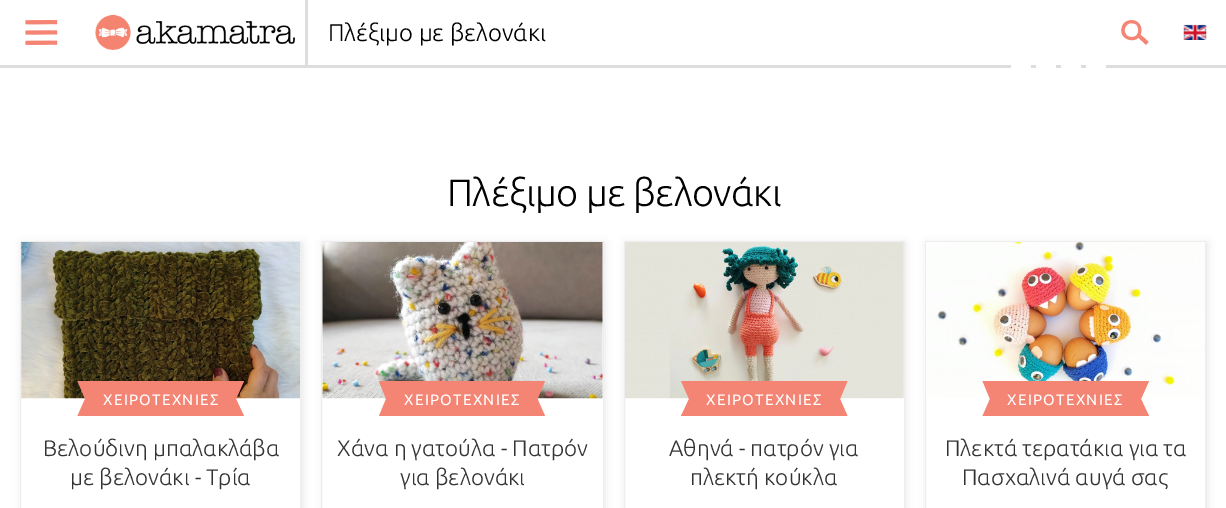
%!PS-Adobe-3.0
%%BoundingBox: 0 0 1226 508
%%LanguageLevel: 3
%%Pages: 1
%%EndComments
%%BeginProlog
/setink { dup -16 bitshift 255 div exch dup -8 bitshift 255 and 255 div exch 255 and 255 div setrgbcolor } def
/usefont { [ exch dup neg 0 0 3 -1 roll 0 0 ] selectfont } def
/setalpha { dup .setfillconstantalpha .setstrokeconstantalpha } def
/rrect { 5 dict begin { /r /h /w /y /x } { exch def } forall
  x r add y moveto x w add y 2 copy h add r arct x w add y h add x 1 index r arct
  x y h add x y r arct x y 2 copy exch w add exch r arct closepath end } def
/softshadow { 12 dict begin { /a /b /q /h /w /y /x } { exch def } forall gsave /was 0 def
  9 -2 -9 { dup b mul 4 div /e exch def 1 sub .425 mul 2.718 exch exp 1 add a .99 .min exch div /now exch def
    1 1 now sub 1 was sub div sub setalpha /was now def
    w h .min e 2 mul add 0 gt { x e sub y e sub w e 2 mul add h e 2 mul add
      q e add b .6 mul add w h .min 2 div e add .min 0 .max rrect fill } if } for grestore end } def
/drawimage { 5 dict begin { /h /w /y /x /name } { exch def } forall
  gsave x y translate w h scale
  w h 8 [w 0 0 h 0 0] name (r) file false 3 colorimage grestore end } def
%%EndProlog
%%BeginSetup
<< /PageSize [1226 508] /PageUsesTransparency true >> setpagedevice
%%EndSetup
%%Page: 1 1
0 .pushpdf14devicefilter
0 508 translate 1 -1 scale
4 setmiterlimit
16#FFFFFF setink
0 0 1226 508 rectfill
16#DDDDDD setink
0 65 1226 3 rectfill
(img1.raw) 25 20 33 25 drawimage
(img2.raw) 95 14 200 36 drawimage
305 0 3 65 rectfill
/Ubuntu-Light 24 usefont
16#000000 setink
328 41 moveto (Πλέξιμο με βελονάκι) show
(img3.raw) 1121 20 28 25 drawimage
(img4.raw) 1183 24 24 16 drawimage
[
    [1011 65 20 3 16#FFFFFF]
    [1036 65 20 3 16#FFFFFF]
    [1061 65 20 3 16#FFFFFF]
    [1086 65 20 3 16#FFFFFF]
] { aload pop setink rectfill } forall
/Ubuntu-Light 38 usefont
16#000000 setink
447 206 moveto -0.6 0 (Πλέξιμο με βελονάκι) ashow
21 243 282 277 0 4 0.09 softshadow
16#FFFFFF setink
20.5 241.5 moveto 300.5 241.5 lineto 300.5 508.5 lineto 20.5 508.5 lineto closepath gsave fill grestore
16#EEEEEE setink
stroke
(img5.raw) 21 242 279 157 drawimage
16#F48473 setink
77.5 381 moveto 102.5 381 lineto 85 399 lineto closepath fill
85 381 18 35 rectfill
102.5 416 moveto 77.5 416 lineto 85 399 lineto closepath fill
219 381 moveto 244 381 lineto 236 399 lineto closepath 244 416 moveto 219 416 lineto 236 399 lineto closepath fill
103 381 133 35 rectfill
/Ubuntu-Regular 15 usefont
16#FFFFFF setink
103 405 moveto 1.25 0 (ΧΕΙΡΟΤΕΧΝΙΕΣ) ashow
/Ubuntu-Light 22.5 usefont
16#333333 setink
43 456 moveto (Βελούδινη μπαλακλάβα) show
70 485 moveto (με βελονάκι - Τρία) show
16#000000 setink
323 243 282 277 0 4 0.09 softshadow
16#FFFFFF setink
321.5 241.5 moveto 603.5 241.5 lineto 603.5 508.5 lineto 321.5 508.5 lineto closepath gsave fill grestore
16#EEEEEE setink
stroke
(img6.raw) 322 242 281 157 drawimage
16#F48473 setink
379 381 moveto 404 381 lineto 386 399 lineto closepath fill
386 381 18 35 rectfill
404 416 moveto 379 416 lineto 386 399 lineto closepath fill
520 381 moveto 545 381 lineto 537.5 399 lineto closepath 545 416 moveto 520 416 lineto 537.5 399 lineto closepath fill
404 381 134 35 rectfill
/Ubuntu-Regular 15 usefont
16#FFFFFF setink
404 405 moveto 1.25 0 (ΧΕΙΡΟΤΕΧΝΙΕΣ) ashow
/Ubuntu-Light 22.5 usefont
16#333333 setink
337 456 moveto (Χάνα η γατούλα - Πατρόν) show
400 485 moveto (για βελονάκι) show
16#000000 setink
625 243 281 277 0 4 0.09 softshadow
16#FFFFFF setink
624.5 241.5 moveto 904.5 241.5 lineto 904.5 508.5 lineto 624.5 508.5 lineto closepath gsave fill grestore
16#EEEEEE setink
stroke
(img7.raw) 625 242 279 157 drawimage
16#F48473 setink
681 381 moveto 706 381 lineto 689 399 lineto closepath fill
689 381 17 35 rectfill
706 416 moveto 681 416 lineto 689 399 lineto closepath fill
822.5 381 moveto 847.5 381 lineto 840 399 lineto closepath 847.5 416 moveto 822.5 416 lineto 840 399 lineto closepath fill
706 381 134 35 rectfill
/Ubuntu-Regular 15 usefont
16#FFFFFF setink
706 405 moveto 1.25 0 (ΧΕΙΡΟΤΕΧΝΙΕΣ) ashow
/Ubuntu-Light 22.5 usefont
16#333333 setink
669 456 moveto (Αθηνά - πατρόν για) show
690 485 moveto (πλεκτή κούκλα) show
16#000000 setink
926 243 282 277 0 4 0.09 softshadow
16#FFFFFF setink
925.5 241.5 moveto 1205.5 241.5 lineto 1205.5 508.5 lineto 925.5 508.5 lineto closepath gsave fill grestore
16#EEEEEE setink
stroke
(img8.raw) 926 242 279 156 drawimage
16#F48473 setink
982.5 381 moveto 1007.5 381 lineto 990 399 lineto closepath fill
990 381 18 35 rectfill
1007.5 416 moveto 982.5 416 lineto 990 399 lineto closepath fill
1124 381 moveto 1149 381 lineto 1141 399 lineto closepath 1149 416 moveto 1124 416 lineto 1141 399 lineto closepath fill
1008 381 133 35 rectfill
/Ubuntu-Regular 15 usefont
16#FFFFFF setink
1007 405 moveto 1.25 0 (ΧΕΙΡΟΤΕΧΝΙΕΣ) ashow
/Ubuntu-Light 22.5 usefont
16#333333 setink
945 456 moveto (Πλεκτά τερατάκια για τα) show
962 485 moveto (Πασχαλινά αυγά σας) show
.poppdf14devicefilter showpage
%%EOF
